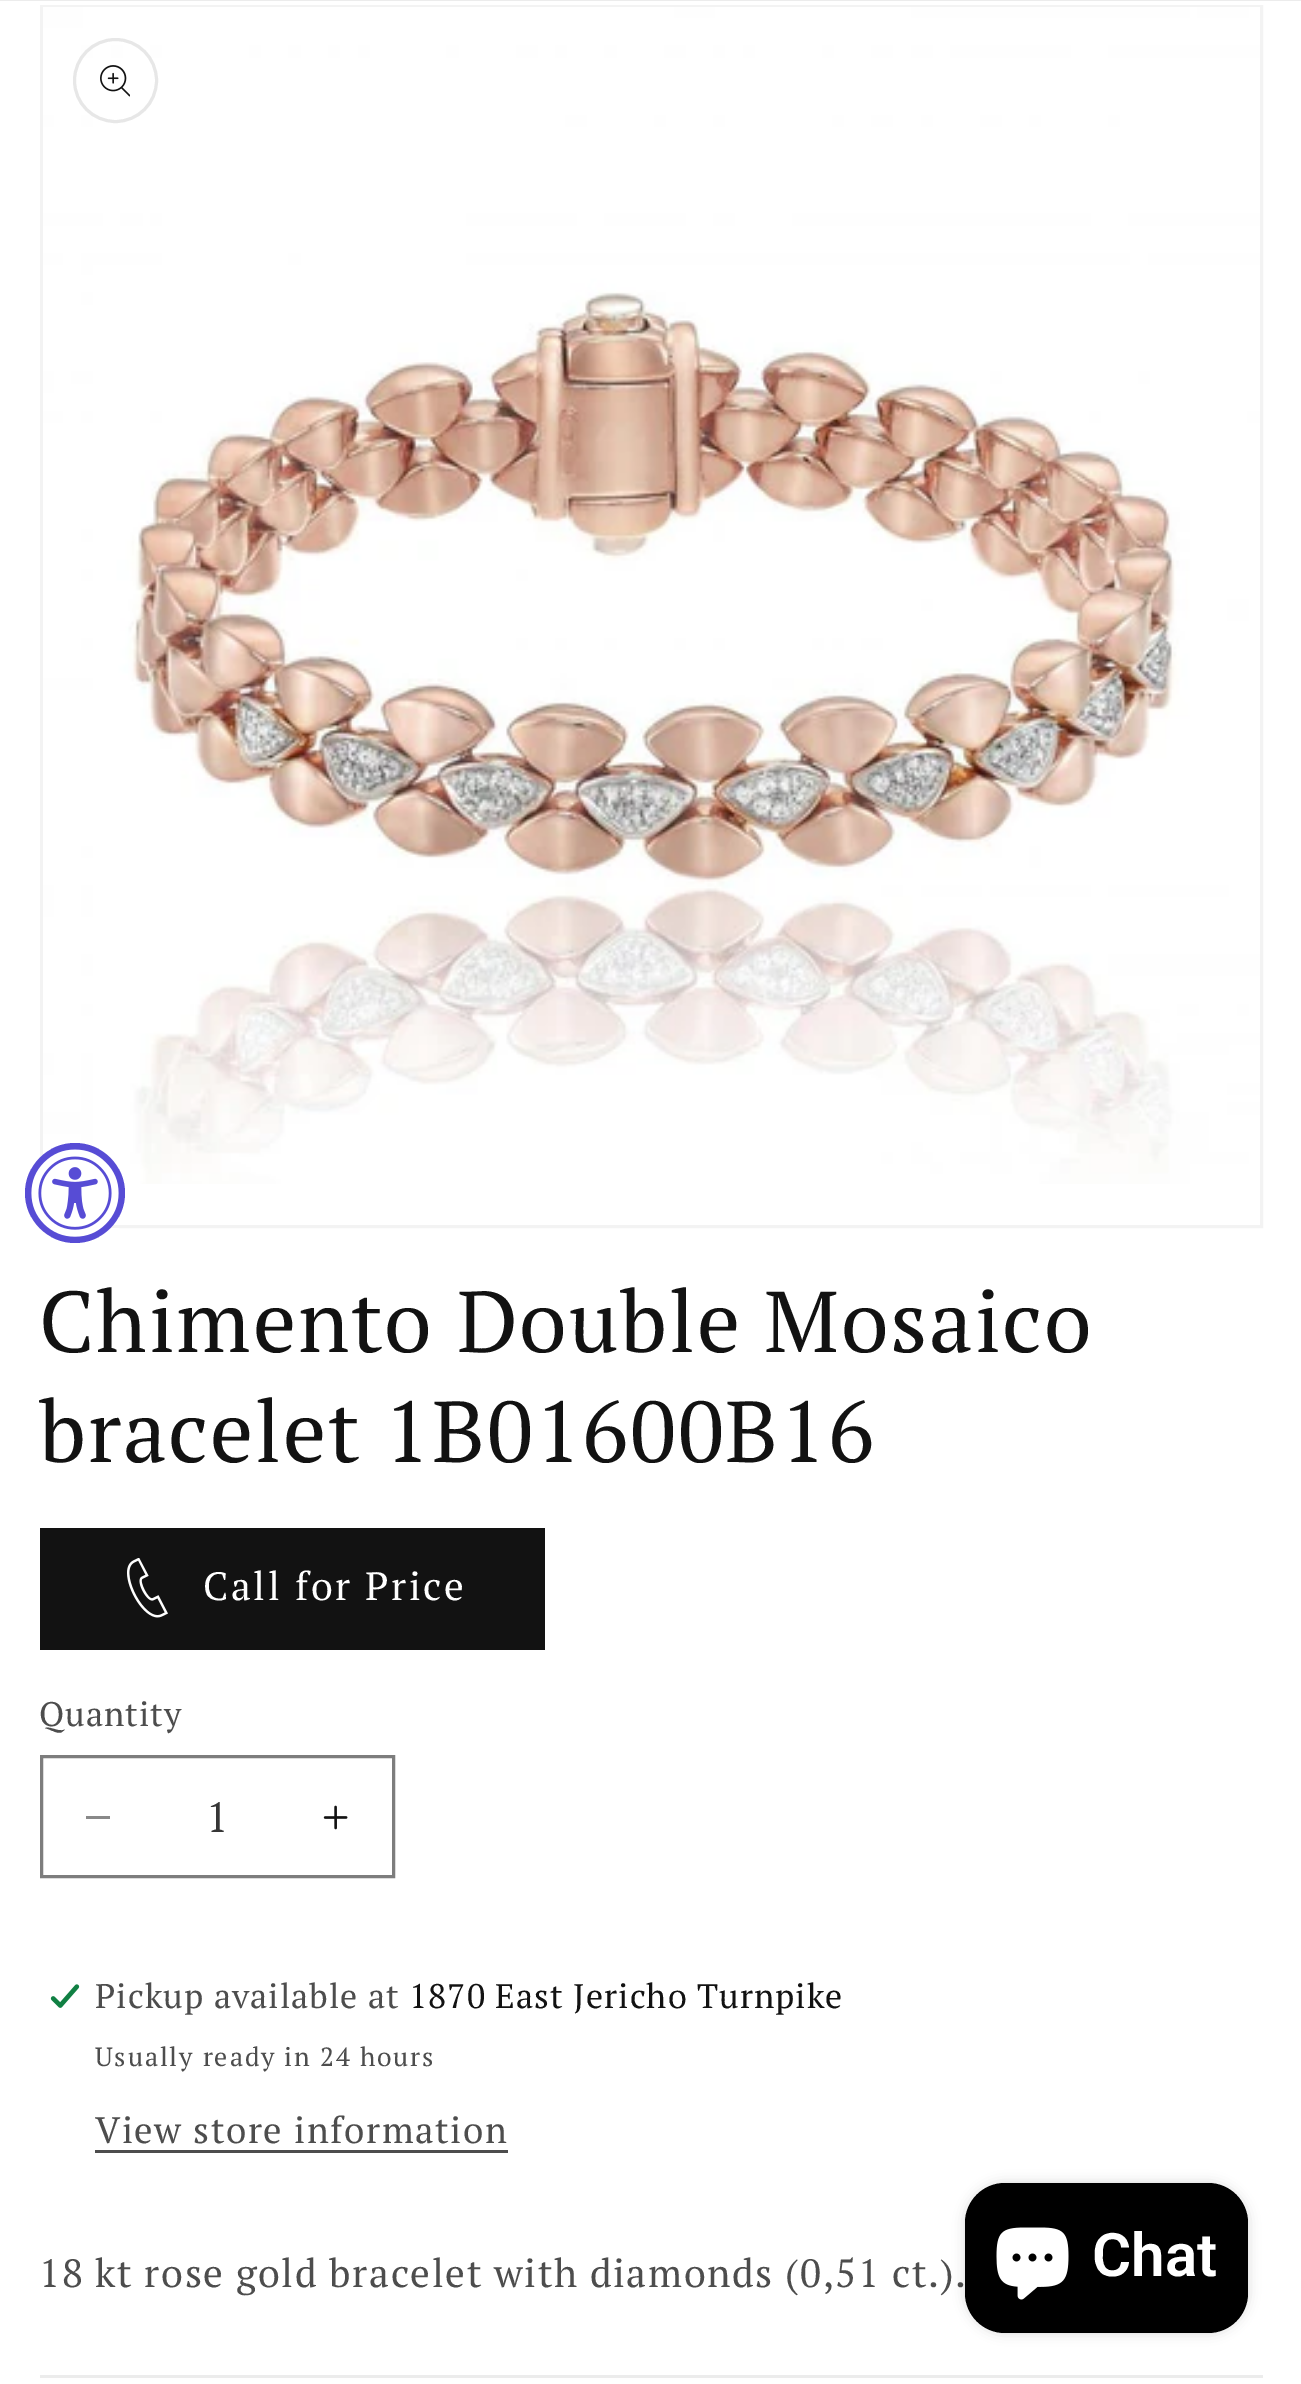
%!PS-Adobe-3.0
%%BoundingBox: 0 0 1301 2384
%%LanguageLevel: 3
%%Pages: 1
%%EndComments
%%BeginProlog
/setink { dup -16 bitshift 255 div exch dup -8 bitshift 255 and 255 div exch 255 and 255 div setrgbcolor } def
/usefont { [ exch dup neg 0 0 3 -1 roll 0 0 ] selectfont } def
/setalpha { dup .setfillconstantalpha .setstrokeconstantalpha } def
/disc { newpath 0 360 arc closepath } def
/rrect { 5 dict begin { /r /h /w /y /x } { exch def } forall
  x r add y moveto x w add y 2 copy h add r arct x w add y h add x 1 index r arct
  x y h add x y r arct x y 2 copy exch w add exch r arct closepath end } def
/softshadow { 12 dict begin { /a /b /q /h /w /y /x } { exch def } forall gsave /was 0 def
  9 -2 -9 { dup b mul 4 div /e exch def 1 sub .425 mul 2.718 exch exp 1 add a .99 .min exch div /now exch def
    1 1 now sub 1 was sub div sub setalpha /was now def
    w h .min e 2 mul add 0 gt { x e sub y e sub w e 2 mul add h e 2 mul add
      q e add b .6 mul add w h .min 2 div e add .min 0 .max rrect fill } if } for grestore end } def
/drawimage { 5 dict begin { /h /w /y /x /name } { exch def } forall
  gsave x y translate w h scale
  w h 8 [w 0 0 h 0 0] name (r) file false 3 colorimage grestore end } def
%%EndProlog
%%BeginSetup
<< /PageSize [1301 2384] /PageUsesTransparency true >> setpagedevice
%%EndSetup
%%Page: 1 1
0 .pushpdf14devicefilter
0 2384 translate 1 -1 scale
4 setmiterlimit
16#FFFFFF setink
0 0 1301 2384 rectfill
16#ECECEC setink
0 0 1301 1 rectfill
16#F3F3F3 setink
3 setlinewidth
41.5 6.5 1220 1220 rectstroke
(img2.raw) 43 7 1217 1177 drawimage
16#574CD5 setink
75 1193 50 disc fill
(img1.raw) 31 1149 88 88 drawimage
16#E7E7E7 setink
115.5 80.5 41 disc stroke
(img3.raw) 100 65 30 32 drawimage
/PTSerif-Regular 86.25 usefont
16#121212 setink
39 1352 moveto 1.75 0 (Chimento Double Mosaico) ashow
39 1462 moveto 1.75 0 (bracelet 1B01600B16) ashow
40 1528 505 122 rectfill
(img4.raw) 127 1558 41 60 drawimage
/PTSerif-Regular 39.4 usefont
16#FFFFFF setink
203 1600 moveto 2.6 0 (Call for Price) ashow
/PTSerif-Regular 34.1 usefont
16#4D4D4D setink
39 1726 moveto 1.05 0 (Quantity) ashow
16#898989 setink
86 1816 24 3 rectfill
(img5.raw) 323 1805 25 25 drawimage
16#7D7D7D setink
41.5 1756.5 352 120 rectstroke
/PTSerif-Regular 42 usefont
16#363636 setink
206 1832 moveto (1) show
(img6.raw) 50 1984 30 24 drawimage
/PTSerif-Regular 34.1 usefont
16#4D4D4D setink
95 2008 moveto 1.05 0 (Pickup available at) ashow
16#121212 setink
409 2008 moveto 1.05 0 (1870 East Jericho Turnpike) ashow
/PTSerif-Regular 26.25 usefont
16#4D4D4D setink
95 2066 moveto 1.85 0 (Usually ready in 24 hours) ashow
/PTSerif-Regular 36.75 usefont
95 2143 moveto 1.57 0 (View store information) ashow
95 2150 413 3 rectfill
/PTSerif-Regular 39.4 usefont
39 2287 moveto 1.57 0 (18 kt rose gold bracelet with diamonds \(0,51 ct.\).) ashow
16#ECECEC setink
40 2375 1223 3 rectfill
16#000000 setink
965 2183 283 150 40 6 0.15 softshadow
965 2183 283 150 40 rrect fill
(img7.raw) 996 2227 73 73 drawimage
/Roboto-SemiBold 60 usefont
16#FFFFFF setink
1092 2276 moveto (Chat) show
.poppdf14devicefilter showpage
%%EOF
